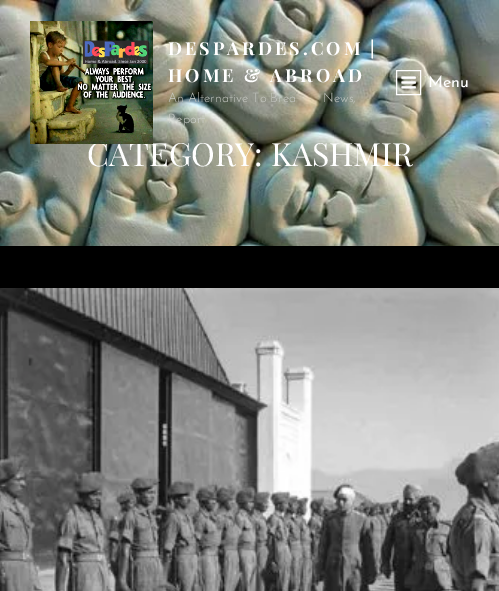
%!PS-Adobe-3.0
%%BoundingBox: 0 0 499 591
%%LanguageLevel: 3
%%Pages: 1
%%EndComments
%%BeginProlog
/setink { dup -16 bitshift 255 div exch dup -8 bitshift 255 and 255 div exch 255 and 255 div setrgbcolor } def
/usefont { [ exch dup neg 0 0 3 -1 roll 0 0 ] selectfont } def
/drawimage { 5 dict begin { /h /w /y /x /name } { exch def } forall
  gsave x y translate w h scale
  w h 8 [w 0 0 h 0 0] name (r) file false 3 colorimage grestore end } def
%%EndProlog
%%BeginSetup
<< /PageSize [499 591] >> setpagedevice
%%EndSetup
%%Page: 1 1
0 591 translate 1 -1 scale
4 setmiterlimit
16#000000 setink
0 0 499 591 rectfill
(img3.raw) 0 0 499 246 drawimage
/PlayfairDisplay-Regular 32 usefont
16#FFFFFF setink
87 166 moveto (CATEGORY: KASHMIR) show
(img1.raw) 30 21 123 123 drawimage
/PlayfairDisplay-Bold 18 usefont
168 55 moveto 3 0 (DESPARDES.COM |) ashow
168 82 moveto 3 0 (HOME & ABROAD) ashow
/JosefinSans-Light 13 usefont
16#C9CBC6 setink
168 102 moveto (An Alternative To Brea) show
323 102 moveto (News,) show
16#D4D7D3 setink
168 123 moveto (Report) show
16#FFFFFF setink
396.5 70.5 24 24 rectstroke
(img2.raw) 401 76 15 13 drawimage
/JosefinSans-Regular 16 usefont
428 87 moveto (Menu) show
(img4.raw) 0 288 499 303 drawimage
showpage
%%EOF
